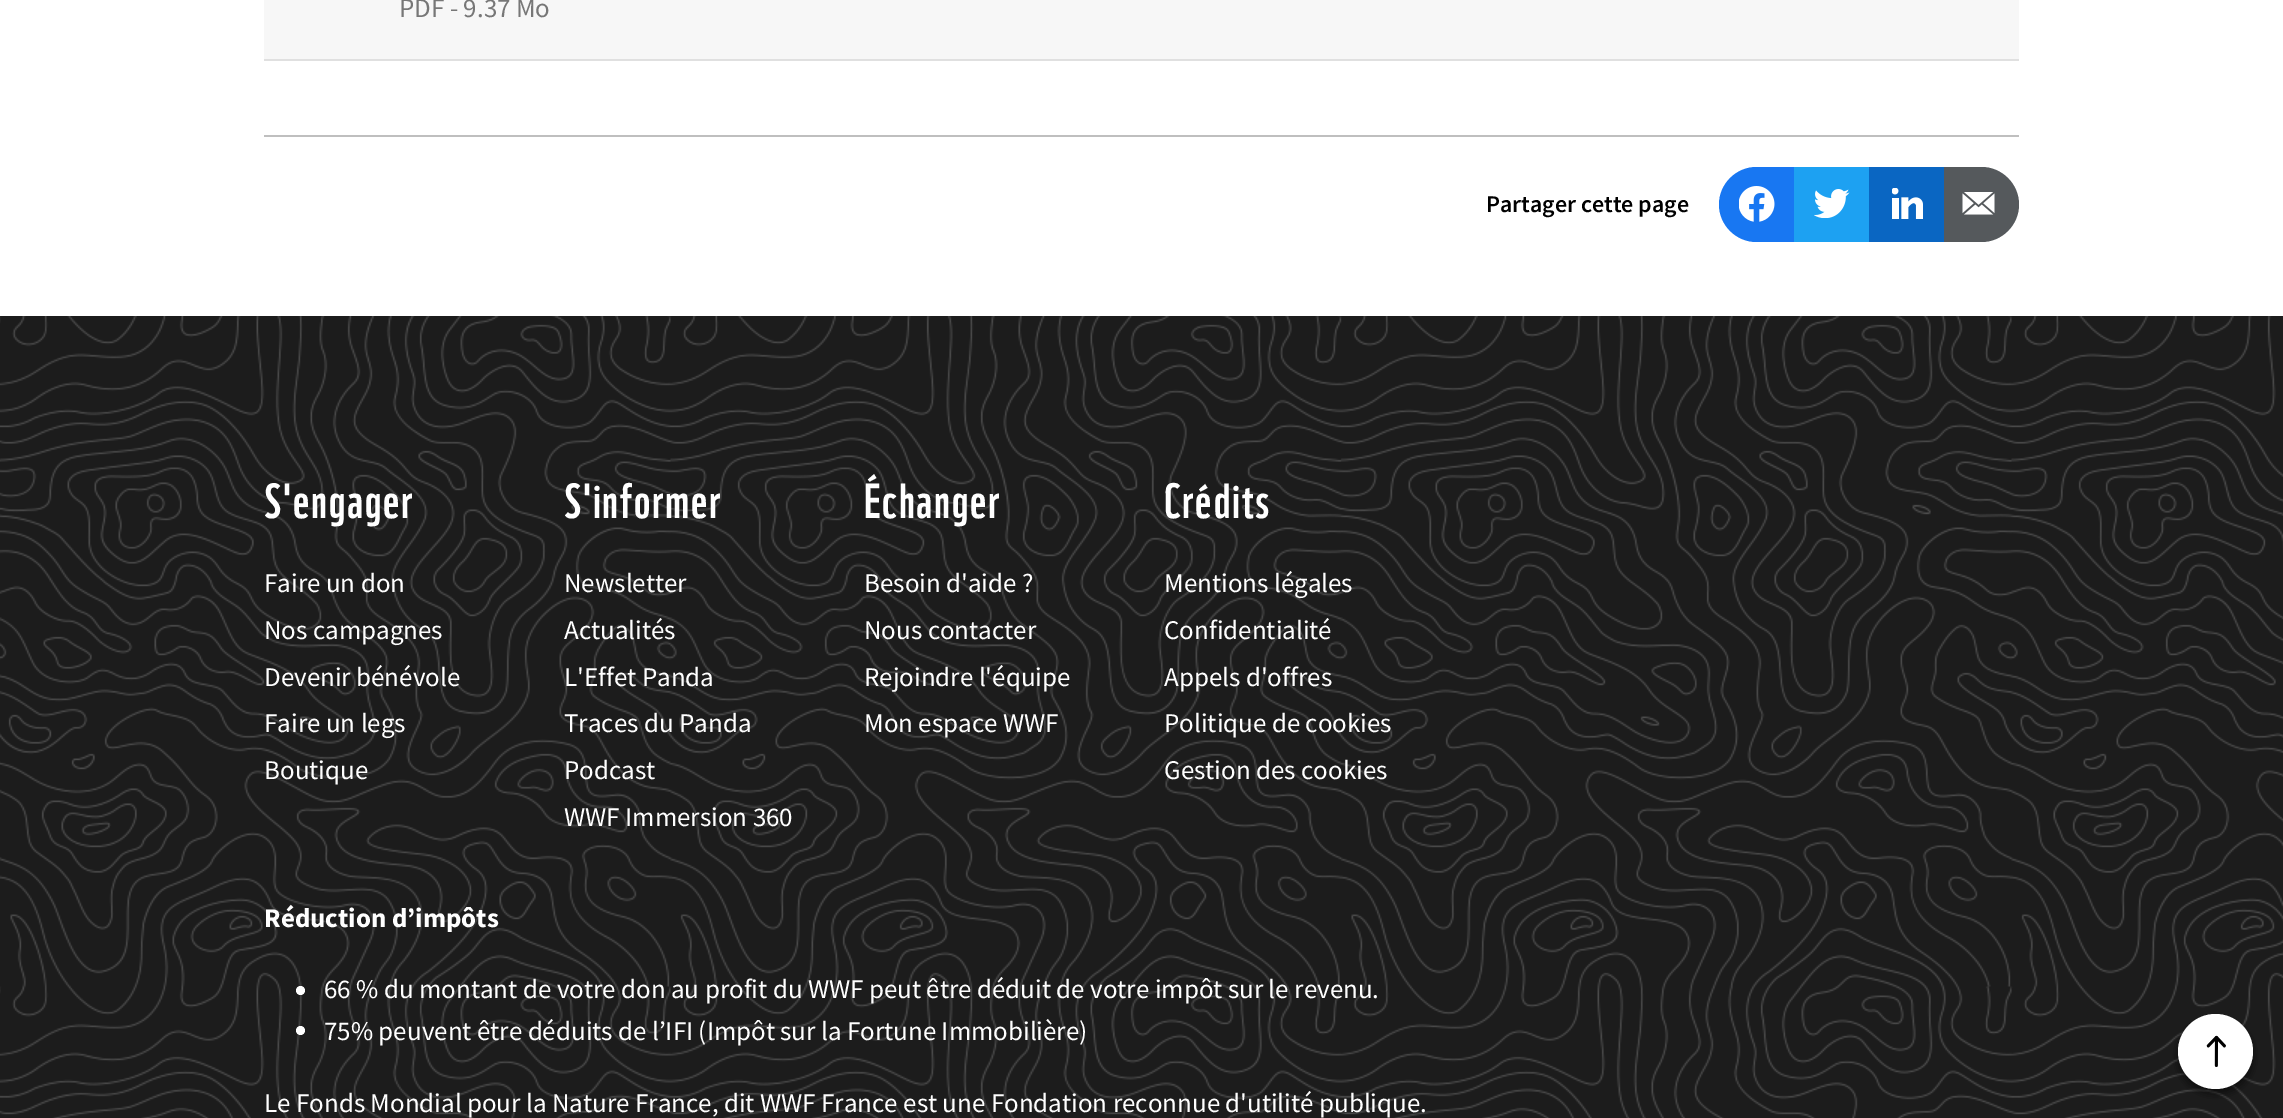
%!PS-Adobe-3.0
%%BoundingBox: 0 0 2283 1118
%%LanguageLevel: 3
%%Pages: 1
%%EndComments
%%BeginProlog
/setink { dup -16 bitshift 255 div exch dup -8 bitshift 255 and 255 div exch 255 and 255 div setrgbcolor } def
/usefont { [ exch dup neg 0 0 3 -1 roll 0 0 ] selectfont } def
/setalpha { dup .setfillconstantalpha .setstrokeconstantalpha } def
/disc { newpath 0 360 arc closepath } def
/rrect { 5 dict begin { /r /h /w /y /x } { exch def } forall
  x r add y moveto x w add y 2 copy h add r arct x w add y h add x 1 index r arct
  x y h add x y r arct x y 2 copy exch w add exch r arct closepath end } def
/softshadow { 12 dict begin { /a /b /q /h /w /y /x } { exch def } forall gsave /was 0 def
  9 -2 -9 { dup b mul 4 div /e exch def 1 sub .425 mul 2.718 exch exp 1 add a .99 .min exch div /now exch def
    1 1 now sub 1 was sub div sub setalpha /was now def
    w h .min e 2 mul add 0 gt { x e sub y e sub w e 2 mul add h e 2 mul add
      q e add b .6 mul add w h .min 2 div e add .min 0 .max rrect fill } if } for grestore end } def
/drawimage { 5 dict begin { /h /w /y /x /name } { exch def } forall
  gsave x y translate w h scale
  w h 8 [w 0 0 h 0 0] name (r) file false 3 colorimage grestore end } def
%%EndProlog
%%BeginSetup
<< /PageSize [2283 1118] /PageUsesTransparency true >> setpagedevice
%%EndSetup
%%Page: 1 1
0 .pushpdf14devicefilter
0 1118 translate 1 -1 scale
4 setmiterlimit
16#FFFFFF setink
0 0 2283 1118 rectfill
16#F7F7F7 setink
264 0 1755 59 rectfill
16#E0E0E0 setink
264 59 1755 2 rectfill
/SourceSansPro-Regular 27 usefont
16#777777 setink
399 17 moveto (PDF - 9.37 Mo) show
16#BFBFBF setink
264 135 1755 2 rectfill
/SourceSansPro-SemiBold 24 usefont
16#000000 setink
1486 212 moveto (Partager cette page) show
16#1877F2 setink
1756.5 167 moveto 1794 167 lineto 1794 242 lineto 1756.5 242 lineto 1736 242 1719 225 1719 204.5 curveto 1719 184 1736 167 1756.5 167 curveto closepath fill
(img1.raw) 1739 186 36 36 drawimage
16#1DA1F2 setink
1794 167 75 75 rectfill
(img2.raw) 1814 189 36 29 drawimage
16#0A66C2 setink
1869 167 75 75 rectfill
(img3.raw) 1892 188 31 31 drawimage
16#55595C setink
1944 167 moveto 1981.5 167 lineto 2002 167 2019 184 2019 204.5 curveto 2019 225 2002 242 1981.5 242 curveto 1944 242 lineto closepath fill
(img4.raw) 1962 192 33 23 drawimage
(img5.raw) 0 316 2283 802 drawimage
/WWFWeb-Regular 48 usefont
16#FFFFFF setink
264 518 moveto 1.75 0 (S'engager) ashow
/SourceSansPro-Regular 27 usefont
[
    [(Faire un don) 264 592]
    [(Nos campagnes) 264 639]
    [(Devenir bénévole) 264 686]
    [(Faire un legs) 264 732]
    [(Boutique) 264 779]
] { aload pop moveto show } forall
/WWFWeb-Regular 48 usefont
564 518 moveto 1.75 0 (S'informer) ashow
/SourceSansPro-Regular 27 usefont
[
    [(Newsletter) 564 592]
    [(Actualités) 564 639]
    [(L'Effet Panda) 564 686]
    [(Traces du Panda) 564 732]
    [(Podcast) 564 779]
    [(WWF Immersion 360) 564 826]
] { aload pop moveto show } forall
/WWFWeb-Regular 48 usefont
864 518 moveto 1.75 0 (Échanger) ashow
/SourceSansPro-Regular 27 usefont
[
    [(Besoin d'aide ?) 864 592]
    [(Nous contacter) 864 639]
    [(Rejoindre l'équipe) 864 686]
    [(Mon espace WWF) 864 732]
] { aload pop moveto show } forall
/WWFWeb-Regular 48 usefont
1164 518 moveto 1.75 0 (Crédits) ashow
/SourceSansPro-Regular 27 usefont
[
    [(Mentions légales) 1164 592]
    [(Confidentialité) 1164 639]
    [(Appels d'offres) 1164 686]
    [(Politique de cookies) 1164 732]
    [(Gestion des cookies) 1164 779]
] { aload pop moveto show } forall
/SourceSansPro-Bold 27 usefont
264 927 moveto (Réduction d’impôts) show
300.5 990.5 4.5 disc fill
/SourceSansPro-Regular 27 usefont
324 998 moveto (66 % du montant de votre don au profit du WWF peut être déduit de votre impôt sur le revenu.) show
300.5 1030.5 4.5 disc fill
324 1040 moveto (75% peuvent être déduits de l’IFI \(Impôt sur la Fortune Immobilière\)) show
264 1112 moveto (Le Fonds Mondial pour la Nature France, dit WWF France est une Fondation reconnue d'utilité publique.) show
16#000000 setink
2178 1019 75 75 37.5 4.5 0.25 softshadow
2178 1019 75 75 37.5 4.5 0.36 softshadow
16#FFFFFF setink
2215.5 1051.5 37.5 disc fill
(img6.raw) 2206 1035 20 32 drawimage
.poppdf14devicefilter showpage
%%EOF
